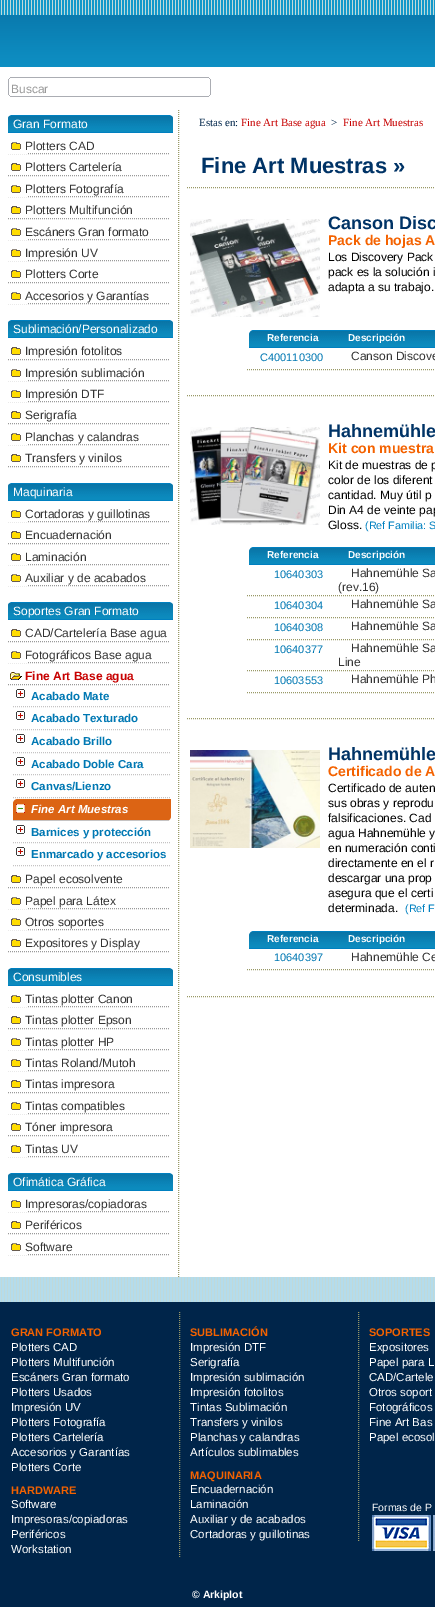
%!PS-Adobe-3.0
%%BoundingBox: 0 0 435 1607
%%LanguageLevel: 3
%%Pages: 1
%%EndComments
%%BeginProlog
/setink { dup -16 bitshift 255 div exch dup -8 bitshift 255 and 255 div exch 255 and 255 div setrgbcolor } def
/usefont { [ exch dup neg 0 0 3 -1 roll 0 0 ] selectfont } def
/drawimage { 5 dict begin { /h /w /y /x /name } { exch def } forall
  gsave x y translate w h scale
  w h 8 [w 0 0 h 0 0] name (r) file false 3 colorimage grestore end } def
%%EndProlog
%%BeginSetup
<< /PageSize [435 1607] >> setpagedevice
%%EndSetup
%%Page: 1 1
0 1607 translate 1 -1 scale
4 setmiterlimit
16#C0D9D9 setink
0 0 435 1607 rectfill
(img1.raw) 0 0 435 1302 drawimage
16#FFFFFF setink
0 67 435 1210 rectfill
(img2.raw) 0 15 435 52 drawimage
(img3.raw) 8 77 203 20 drawimage
/LiberationSans-Regular 12 usefont
16#999999 setink
11 93 moveto (Buscar) show
16#999966 setink
[1 1] 0 setdash
178.5 110 moveto 178.5 1277 lineto stroke
16#0080C0 setink
12 115 moveto 169 115 lineto 171 115 173 117 173 119 curveto 173 133 lineto 8 133 lineto 8 119 lineto 8 117 10 115 12 115 curveto closepath fill
(img4.raw) 8 116 165 16 drawimage
16#FFFFFF setink
13 128 moveto (Gran Formato) show
16#999999 setink
8 153.5 moveto 170 153.5 lineto stroke
(img5.raw) 11 142 10 8 drawimage
16#FFFFFF setink
2 setlinewidth
[] 0 setdash
9 141 17 12 rectstroke
16#333333 setink
25 150 moveto (Plotters CAD) show
16#999999 setink
1 setlinewidth
[1 1] 0 setdash
8 175.5 moveto 170 175.5 lineto stroke
(img5.raw) 11 163 10 8 drawimage
16#333333 setink
25 171 moveto (Plotters Cartelería) show
16#999999 setink
8 196.5 moveto 170 196.5 lineto stroke
(img5.raw) 11 185 10 8 drawimage
16#FFFFFF setink
2 setlinewidth
[] 0 setdash
9 184 17 12 rectstroke
16#333333 setink
25 193 moveto (Plotters Fotografía) show
16#999999 setink
1 setlinewidth
[1 1] 0 setdash
8 218.5 moveto 170 218.5 lineto stroke
(img5.raw) 11 206 10 8 drawimage
16#333333 setink
25 214 moveto (Plotters Multifunción) show
16#999999 setink
8 239.5 moveto 170 239.5 lineto stroke
(img5.raw) 11 228 10 8 drawimage
16#FFFFFF setink
2 setlinewidth
[] 0 setdash
9 227 17 12 rectstroke
16#333333 setink
25 236 moveto (Escáners Gran formato) show
16#999999 setink
1 setlinewidth
[1 1] 0 setdash
8 260.5 moveto 170 260.5 lineto stroke
(img5.raw) 11 249 10 8 drawimage
16#FFFFFF setink
2 setlinewidth
[] 0 setdash
9 248 17 12 rectstroke
16#333333 setink
25 257 moveto (Impresión UV) show
16#999999 setink
1 setlinewidth
[1 1] 0 setdash
8 282.5 moveto 170 282.5 lineto stroke
(img5.raw) 11 270 10 8 drawimage
16#333333 setink
25 278 moveto (Plotters Corte) show
16#999999 setink
8 303.5 moveto 170 303.5 lineto stroke
(img5.raw) 11 292 10 8 drawimage
16#FFFFFF setink
2 setlinewidth
[] 0 setdash
9 291 17 12 rectstroke
16#333333 setink
25 300 moveto (Accesorios y Garantías) show
16#0080C0 setink
12 320 moveto 169 320 lineto 171 320 173 322 173 324 curveto 173 338 lineto 8 338 lineto 8 324 lineto 8 322 10 320 12 320 curveto closepath fill
(img4.raw) 8 321 165 16 drawimage
16#FFFFFF setink
13 333 moveto (Sublimación/Personalizado) show
16#999999 setink
1 setlinewidth
[1 1] 0 setdash
8 359.5 moveto 170 359.5 lineto stroke
(img5.raw) 11 347 10 8 drawimage
16#333333 setink
25 355 moveto (Impresión fotolitos) show
16#999999 setink
8 380.5 moveto 170 380.5 lineto stroke
(img5.raw) 11 369 10 8 drawimage
16#FFFFFF setink
2 setlinewidth
[] 0 setdash
9 368 17 12 rectstroke
16#333333 setink
25 377 moveto (Impresión sublimación) show
16#999999 setink
1 setlinewidth
[1 1] 0 setdash
8 401.5 moveto 170 401.5 lineto stroke
(img5.raw) 11 390 10 8 drawimage
16#FFFFFF setink
2 setlinewidth
[] 0 setdash
9 389 17 12 rectstroke
16#333333 setink
25 398 moveto (Impresión DTF) show
16#999999 setink
1 setlinewidth
[1 1] 0 setdash
8 423.5 moveto 170 423.5 lineto stroke
(img5.raw) 11 411 10 8 drawimage
16#333333 setink
25 419 moveto (Serigrafía) show
16#999999 setink
8 444.5 moveto 170 444.5 lineto stroke
(img5.raw) 11 433 10 8 drawimage
16#FFFFFF setink
2 setlinewidth
[] 0 setdash
9 432 17 12 rectstroke
16#333333 setink
25 441 moveto (Planchas y calandras) show
16#999999 setink
1 setlinewidth
[1 1] 0 setdash
8 466.5 moveto 170 466.5 lineto stroke
(img5.raw) 11 454 10 8 drawimage
16#333333 setink
25 462 moveto (Transfers y vinilos) show
16#0080C0 setink
12 483 moveto 169 483 lineto 171 483 173 485 173 487 curveto 173 501 lineto 8 501 lineto 8 487 lineto 8 485 10 483 12 483 curveto closepath fill
(img4.raw) 8 484 165 16 drawimage
16#FFFFFF setink
13 496 moveto (Maquinaria) show
16#999999 setink
8 521.5 moveto 170 521.5 lineto stroke
(img5.raw) 11 510 10 8 drawimage
16#FFFFFF setink
2 setlinewidth
[] 0 setdash
9 509 17 12 rectstroke
16#333333 setink
25 518 moveto (Cortadoras y guillotinas) show
16#999999 setink
1 setlinewidth
[1 1] 0 setdash
8 543.5 moveto 170 543.5 lineto stroke
(img5.raw) 11 531 10 8 drawimage
16#333333 setink
25 539 moveto (Encuadernación) show
16#999999 setink
8 564.5 moveto 170 564.5 lineto stroke
(img5.raw) 11 553 10 8 drawimage
16#FFFFFF setink
2 setlinewidth
[] 0 setdash
9 552 17 12 rectstroke
16#333333 setink
25 561 moveto (Laminación) show
16#999999 setink
1 setlinewidth
[1 1] 0 setdash
8 585.5 moveto 170 585.5 lineto stroke
(img5.raw) 11 574 10 8 drawimage
16#FFFFFF setink
2 setlinewidth
[] 0 setdash
9 573 17 12 rectstroke
16#333333 setink
25 582 moveto (Auxiliar y de acabados) show
16#0080C0 setink
12 602 moveto 169 602 lineto 171 602 173 604 173 606 curveto 173 620 lineto 8 620 lineto 8 606 lineto 8 604 10 602 12 602 curveto closepath fill
(img4.raw) 8 603 165 16 drawimage
16#FFFFFF setink
13 615 moveto (Soportes Gran Formato) show
16#999999 setink
1 setlinewidth
[1 1] 0 setdash
8 641.5 moveto 170 641.5 lineto stroke
(img5.raw) 11 629 10 8 drawimage
16#333333 setink
25 637 moveto (CAD/Cartelería Base agua) show
16#999999 setink
8 662.5 moveto 170 662.5 lineto stroke
(img5.raw) 11 651 10 8 drawimage
16#FFFFFF setink
2 setlinewidth
[] 0 setdash
9 650 17 12 rectstroke
16#333333 setink
25 659 moveto (Fotográficos Base agua) show
16#999999 setink
1 setlinewidth
[1 1] 0 setdash
8 684.5 moveto 170 684.5 lineto stroke
(img6.raw) 10 672 12 8 drawimage
/LiberationSans-Bold 12 usefont
16#C70000 setink
25 680 moveto (Fine Art Base agua) show
(img7.raw) 16 689 9 9 drawimage
16#C5C3C3 setink
13 706.5 moveto 171 706.5 lineto stroke
/LiberationSans-Bold 11.5 usefont
16#0078B3 setink
31 700 moveto (Acabado Mate) show
(img7.raw) 16 711 9 9 drawimage
16#C5C3C3 setink
13 729.5 moveto 171 729.5 lineto stroke
16#0078B3 setink
31 722 moveto (Acabado Texturado) show
(img7.raw) 16 734 9 9 drawimage
16#C5C3C3 setink
13 752.5 moveto 171 752.5 lineto stroke
16#0078B3 setink
31 745 moveto (Acabado Brillo) show
(img7.raw) 16 757 9 9 drawimage
16#C5C3C3 setink
13 774.5 moveto 171 774.5 lineto stroke
16#0078B3 setink
31 768 moveto (Acabado Doble Cara) show
(img7.raw) 16 779 9 9 drawimage
16#C5C3C3 setink
13 797.5 moveto 171 797.5 lineto stroke
16#0078B3 setink
31 790 moveto (Canvas/Lienzo) show
16#DC6414 setink
18 799 moveto 171 799 lineto 171 816 lineto 171 819 169 821 166 821 curveto 13 821 lineto 13 804 lineto 13 801 15 799 18 799 curveto closepath fill
(img8.raw) 16 804 9 9 drawimage
16#C5C3C3 setink
13 820 156 1 rectfill
/LiberationSans-BoldItalic 11.5 usefont
16#FFFFFF setink
31 813 moveto (Fine Art Muestras) show
(img7.raw) 16 825 9 9 drawimage
16#C5C3C3 setink
13 842.5 moveto 171 842.5 lineto stroke
/LiberationSans-Bold 11.5 usefont
16#0078B3 setink
31 836 moveto (Barnices y protección) show
(img7.raw) 16 847 9 9 drawimage
16#C5C3C3 setink
13 865.5 moveto 171 865.5 lineto stroke
16#0078B3 setink
31 858 moveto (Enmarcado y accesorios) show
16#999999 setink
8 887.5 moveto 170 887.5 lineto stroke
(img5.raw) 11 875 10 8 drawimage
/LiberationSans-Regular 12 usefont
16#333333 setink
25 883 moveto (Papel ecosolvente) show
16#999999 setink
8 908.5 moveto 170 908.5 lineto stroke
(img5.raw) 11 897 10 8 drawimage
16#FFFFFF setink
2 setlinewidth
[] 0 setdash
9 896 17 12 rectstroke
16#333333 setink
25 905 moveto (Papel para Látex) show
16#999999 setink
1 setlinewidth
[1 1] 0 setdash
8 929.5 moveto 170 929.5 lineto stroke
(img5.raw) 11 918 10 8 drawimage
16#FFFFFF setink
2 setlinewidth
[] 0 setdash
9 917 17 12 rectstroke
16#333333 setink
25 926 moveto (Otros soportes) show
16#999999 setink
1 setlinewidth
[1 1] 0 setdash
8 951.5 moveto 170 951.5 lineto stroke
(img5.raw) 11 939 10 8 drawimage
16#333333 setink
25 947 moveto (Expositores y Display) show
16#0080C0 setink
12 968 moveto 169 968 lineto 171 968 173 970 173 972 curveto 173 986 lineto 8 986 lineto 8 972 lineto 8 970 10 968 12 968 curveto closepath fill
(img4.raw) 8 969 165 16 drawimage
16#FFFFFF setink
13 981 moveto (Consumibles) show
16#999999 setink
8 1006.5 moveto 170 1006.5 lineto stroke
(img5.raw) 11 995 10 8 drawimage
16#FFFFFF setink
2 setlinewidth
[] 0 setdash
9 994 17 12 rectstroke
16#333333 setink
25 1003 moveto (Tintas plotter Canon) show
16#999999 setink
1 setlinewidth
[1 1] 0 setdash
8 1028.5 moveto 170 1028.5 lineto stroke
(img5.raw) 11 1016 10 8 drawimage
16#333333 setink
25 1024 moveto (Tintas plotter Epson) show
16#999999 setink
8 1049.5 moveto 170 1049.5 lineto stroke
(img5.raw) 11 1038 10 8 drawimage
16#FFFFFF setink
2 setlinewidth
[] 0 setdash
9 1037 17 12 rectstroke
16#333333 setink
25 1046 moveto (Tintas plotter HP) show
16#999999 setink
1 setlinewidth
[1 1] 0 setdash
8 1070.5 moveto 170 1070.5 lineto stroke
(img5.raw) 11 1059 10 8 drawimage
16#FFFFFF setink
2 setlinewidth
[] 0 setdash
9 1058 17 12 rectstroke
16#333333 setink
25 1067 moveto (Tintas Roland/Mutoh) show
16#999999 setink
1 setlinewidth
[1 1] 0 setdash
8 1092.5 moveto 170 1092.5 lineto stroke
(img5.raw) 11 1080 10 8 drawimage
16#333333 setink
25 1088 moveto (Tintas impresora) show
16#999999 setink
8 1113.5 moveto 170 1113.5 lineto stroke
(img5.raw) 11 1102 10 8 drawimage
16#FFFFFF setink
2 setlinewidth
[] 0 setdash
9 1101 17 12 rectstroke
16#333333 setink
25 1110 moveto (Tintas compatibles) show
16#999999 setink
1 setlinewidth
[1 1] 0 setdash
8 1135.5 moveto 170 1135.5 lineto stroke
(img5.raw) 11 1123 10 8 drawimage
16#333333 setink
25 1131 moveto (Tóner impresora) show
16#999999 setink
8 1156.5 moveto 170 1156.5 lineto stroke
(img5.raw) 11 1145 10 8 drawimage
16#FFFFFF setink
2 setlinewidth
[] 0 setdash
9 1144 17 12 rectstroke
16#333333 setink
25 1153 moveto (Tintas UV) show
16#0080C0 setink
12 1173 moveto 169 1173 lineto 171 1173 173 1175 173 1177 curveto 173 1191 lineto 8 1191 lineto 8 1177 lineto 8 1175 10 1173 12 1173 curveto closepath fill
(img4.raw) 8 1174 165 16 drawimage
16#FFFFFF setink
13 1186 moveto (Ofimática Gráfica) show
16#999999 setink
1 setlinewidth
[1 1] 0 setdash
8 1211.5 moveto 170 1211.5 lineto stroke
(img5.raw) 11 1200 10 8 drawimage
16#FFFFFF setink
2 setlinewidth
[] 0 setdash
9 1199 17 12 rectstroke
16#333333 setink
25 1208 moveto (Impresoras/copiadoras) show
16#999999 setink
1 setlinewidth
[1 1] 0 setdash
8 1233.5 moveto 170 1233.5 lineto stroke
(img5.raw) 11 1221 10 8 drawimage
16#333333 setink
25 1229 moveto (Periféricos) show
16#999999 setink
8 1254.5 moveto 170 1254.5 lineto stroke
(img5.raw) 11 1243 10 8 drawimage
16#FFFFFF setink
2 setlinewidth
[] 0 setdash
9 1242 17 12 rectstroke
16#333333 setink
25 1251 moveto (Software) show
/LiberationSerif-Regular 11 usefont
16#00254A setink
199 126 moveto (Estas en:) show
16#C70000 setink
241 126 moveto (Fine Art Base agua) show
16#00254A setink
331 126 moveto (>) show
16#C70000 setink
343 126 moveto (Fine Art Muestras) show
/LiberationSans-Bold 22 usefont
16#003366 setink
201 173 moveto (Fine Art Muestras ») show
16#999966 setink
1 setlinewidth
[1 1] 0 setdash
187 187.5 moveto 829 187.5 lineto stroke
(img9.raw) 190 219 130 98 drawimage
/LiberationSans-Bold 18 usefont
16#003366 setink
328 229 moveto (Canson Disc) show
/LiberationSans-Bold 14 usefont
16#F46200 setink
328 245 moveto (Pack de hojas A) show
/LiberationSans-Regular 12 usefont
16#000000 setink
[
    [(Los Discovery Pack) 328 261]
    [(pack es la solución i) 328 276]
    [(adapta a su trabajo.) 328 291]
] { aload pop moveto show } forall
16#0080C0 setink
254 330 moveto 435 330 lineto 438 330 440 332 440 335 curveto 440 348 lineto 249 348 lineto 249 335 lineto 249 332 251 330 254 330 curveto closepath fill
(img10.raw) 249 331 186 16 drawimage
/LiberationSans-Bold 10 usefont
16#FFFFFF setink
267 341 moveto (Referencia) show
348 341 moveto (Descripción) show
16#999966 setink
247 369.5 moveto 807 369.5 lineto stroke
/LiberationSans-Regular 11 usefont
16#0078B3 setink
260 361 moveto (C400110300) show
/LiberationSans-Regular 12 usefont
16#333333 setink
351 360 moveto (Canson Discove) show
16#999966 setink
187 395.5 moveto 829 395.5 lineto stroke
(img11.raw) 190 427 130 98 drawimage
/LiberationSans-Bold 18 usefont
16#003366 setink
328 437 moveto (Hahnemühle) show
/LiberationSans-Bold 14 usefont
16#F46200 setink
328 453 moveto (Kit con muestra) show
/LiberationSans-Regular 12 usefont
16#000000 setink
[
    [(Kit de muestras de p) 328 469]
    [(color de los diferent) 328 484]
    [(cantidad. Muy útil p) 328 499]
    [(Din A4 de veinte pap) 328 514]
    [(Gloss.) 328 529]
] { aload pop moveto show } forall
/LiberationSans-Regular 10.75 usefont
16#0080C0 setink
365 529 moveto (\(Ref Familia: S) show
254 547 moveto 435 547 lineto 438 547 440 549 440 552 curveto 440 565 lineto 249 565 lineto 249 552 lineto 249 549 251 547 254 547 curveto closepath fill
(img10.raw) 249 548 186 16 drawimage
/LiberationSans-Bold 10 usefont
16#FFFFFF setink
267 558 moveto (Referencia) show
348 558 moveto (Descripción) show
16#999966 setink
247 595.5 moveto 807 595.5 lineto stroke
/LiberationSans-Regular 11 usefont
16#0078B3 setink
274 578 moveto (10640303) show
/LiberationSans-Regular 12 usefont
16#333333 setink
351 577 moveto (Hahnemühle Sa) show
338 591 moveto (\(rev.16\)) show
16#999966 setink
247 617.5 moveto 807 617.5 lineto stroke
/LiberationSans-Regular 11 usefont
16#0078B3 setink
274 609 moveto (10640304) show
/LiberationSans-Regular 12 usefont
16#333333 setink
351 608 moveto (Hahnemühle Sa) show
16#999966 setink
247 639.5 moveto 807 639.5 lineto stroke
/LiberationSans-Regular 11 usefont
16#0078B3 setink
274 631 moveto (10640308) show
/LiberationSans-Regular 12 usefont
16#333333 setink
351 630 moveto (Hahnemühle Sa) show
16#999966 setink
247 670.5 moveto 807 670.5 lineto stroke
/LiberationSans-Regular 11 usefont
16#0078B3 setink
274 653 moveto (10640377) show
/LiberationSans-Regular 12 usefont
16#333333 setink
351 652 moveto (Hahnemühle Sa) show
338 666 moveto (Line) show
16#999966 setink
247 692.5 moveto 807 692.5 lineto stroke
/LiberationSans-Regular 11 usefont
16#0078B3 setink
274 684 moveto (10603553) show
/LiberationSans-Regular 12 usefont
16#333333 setink
351 683 moveto (Hahnemühle Ph) show
16#999966 setink
187 718.5 moveto 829 718.5 lineto stroke
(img12.raw) 190 750 130 98 drawimage
/LiberationSans-Bold 18 usefont
16#003366 setink
328 760 moveto (Hahnemühle) show
/LiberationSans-Bold 14 usefont
16#F46200 setink
328 776 moveto (Certificado de A) show
/LiberationSans-Regular 12 usefont
16#000000 setink
[
    [(Certificado de auten) 328 792]
    [(sus obras y reprodu) 328 807]
    [(falsificaciones. Cad) 328 822]
    [(agua Hahnemühle y) 328 837]
    [(en numeración conti) 328 852]
    [(directamente en el r) 328 867]
    [(descargar una prop) 328 882]
    [(asegura que el certi) 328 897]
    [(determinada.) 328 912]
] { aload pop moveto show } forall
/LiberationSans-Regular 10.75 usefont
16#0080C0 setink
405 912 moveto (\(Ref F) show
254 931 moveto 435 931 lineto 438 931 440 933 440 936 curveto 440 949 lineto 249 949 lineto 249 936 lineto 249 933 251 931 254 931 curveto closepath fill
(img10.raw) 249 932 186 16 drawimage
/LiberationSans-Bold 10 usefont
16#FFFFFF setink
267 942 moveto (Referencia) show
348 942 moveto (Descripción) show
16#999966 setink
247 969.5 moveto 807 969.5 lineto stroke
/LiberationSans-Regular 11 usefont
16#0078B3 setink
274 961 moveto (10640397) show
/LiberationSans-Regular 12 usefont
16#333333 setink
351 961 moveto (Hahnemühle Ce) show
16#999966 setink
187 996.5 moveto 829 996.5 lineto stroke
16#00254A setink
0 1302 435 305 rectfill
16#999966 setink
179.5 1312 moveto 179.5 1558 lineto stroke
/LiberationSans-Bold 11 usefont
16#F46200 setink
11 1336 moveto (GRAN FORMATO) show
/LiberationSans-Regular 11.5 usefont
16#FFFFFF setink
[
    [(Plotters CAD) 11 1351]
    [(Plotters Multifunción) 11 1366]
    [(Escáners Gran formato) 11 1381]
    [(Plotters Usados) 11 1396]
    [(Impresión UV) 11 1411]
    [(Plotters Fotografía) 11 1426]
    [(Plotters Cartelería) 11 1441]
    [(Accesorios y Garantías) 11 1456]
    [(Plotters Corte) 11 1471]
] { aload pop moveto show } forall
/LiberationSans-Bold 11 usefont
16#F46200 setink
11 1494 moveto (HARDWARE) show
/LiberationSans-Regular 11.5 usefont
16#FFFFFF setink
[
    [(Software) 11 1508]
    [(Impresoras/copiadoras) 11 1523]
    [(Periféricos) 11 1538]
    [(Workstation) 11 1553]
] { aload pop moveto show } forall
16#999966 setink
358.5 1312 moveto 358.5 1542 lineto stroke
/LiberationSans-Bold 11 usefont
16#F46200 setink
190 1336 moveto (SUBLIMACIÓN) show
/LiberationSans-Regular 11.5 usefont
16#FFFFFF setink
[
    [(Impresión DTF) 190 1351]
    [(Serigrafía) 190 1366]
    [(Impresión sublimación) 190 1381]
    [(Impresión fotolitos) 190 1396]
    [(Tintas Sublimación) 190 1411]
    [(Transfers y vinilos) 190 1426]
    [(Planchas y calandras) 190 1441]
    [(Artículos sublimables) 190 1456]
] { aload pop moveto show } forall
/LiberationSans-Bold 11 usefont
16#F46200 setink
190 1479 moveto (MAQUINARIA) show
/LiberationSans-Regular 11.5 usefont
16#FFFFFF setink
[
    [(Encuadernación) 190 1493]
    [(Laminación) 190 1508]
    [(Auxiliar y de acabados) 190 1523]
    [(Cortadoras y guillotinas) 190 1538]
] { aload pop moveto show } forall
/LiberationSans-Bold 11 usefont
16#F46200 setink
369 1336 moveto (SOPORTES) show
/LiberationSans-Regular 11.5 usefont
16#FFFFFF setink
[
    [(Expositores) 369 1351]
    [(Papel para L) 369 1366]
    [(CAD/Cartele) 369 1381]
    [(Otros soport) 369 1396]
    [(Fotográficos) 369 1411]
    [(Fine Art Bas) 369 1426]
    [(Papel ecosol) 369 1441]
] { aload pop moveto show } forall
/LiberationSans-Regular 10.5 usefont
372 1511 moveto (Formas de P) show
(img13.raw) 372 1515 63 36 drawimage
/LiberationSans-Bold 10.5 usefont
192 1598 moveto (© Arkiplot) show
showpage
%%EOF
